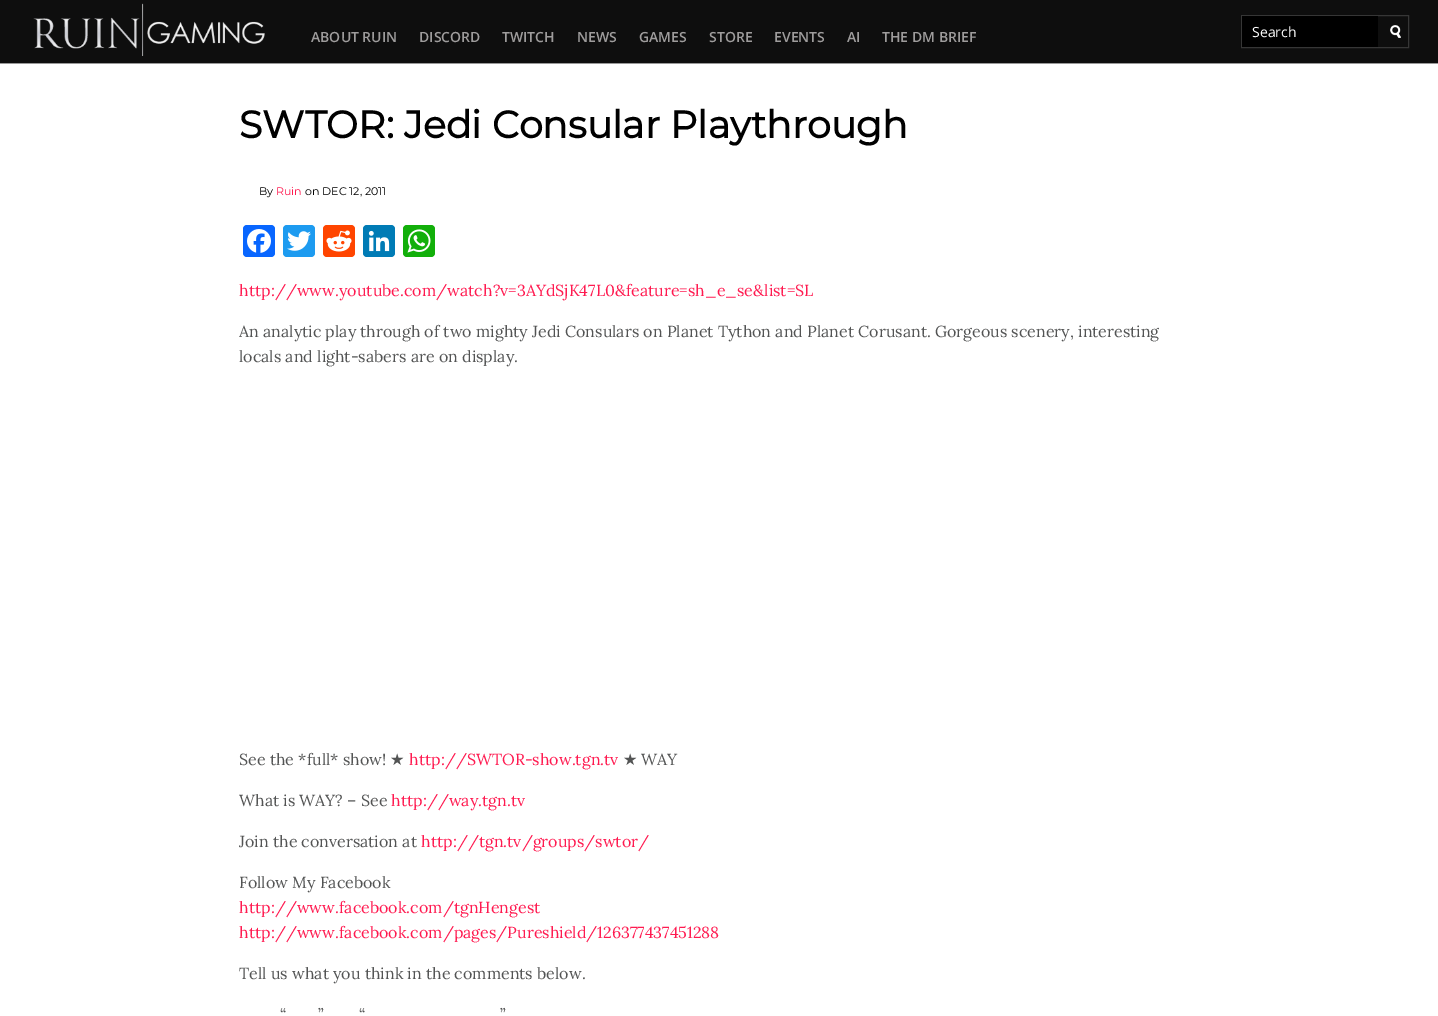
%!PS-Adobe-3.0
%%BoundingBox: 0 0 1438 1016
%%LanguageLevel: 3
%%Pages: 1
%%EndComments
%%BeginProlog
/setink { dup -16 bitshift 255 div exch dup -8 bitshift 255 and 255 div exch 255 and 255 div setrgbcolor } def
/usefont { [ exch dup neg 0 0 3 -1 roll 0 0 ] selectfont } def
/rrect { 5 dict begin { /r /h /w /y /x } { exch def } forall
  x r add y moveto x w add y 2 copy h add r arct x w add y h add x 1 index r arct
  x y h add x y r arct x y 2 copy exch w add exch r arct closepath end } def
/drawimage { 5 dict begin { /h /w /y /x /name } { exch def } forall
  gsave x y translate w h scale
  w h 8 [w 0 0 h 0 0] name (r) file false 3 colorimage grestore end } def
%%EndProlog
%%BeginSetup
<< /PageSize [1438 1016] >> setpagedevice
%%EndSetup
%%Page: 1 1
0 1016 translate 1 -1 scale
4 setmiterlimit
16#FFFFFF setink
0 0 1438 1016 rectfill
16#0E0E0E setink
0 0 1438 63 rectfill
16#999999 setink
0 63 1438 1 rectfill
(img1.raw) 33 3 232 53 drawimage
/OpenSans-SemiBold 14 usefont
16#9E9C9C setink
[
    [(ABOUT RUIN) 311 42]
    [(DISCORD) 419 42]
    [(TWITCH) 502 42]
    [(NEWS) 577 42]
    [(GAMES) 639 42]
    [(STORE) 709 42]
    [(EVENTS) 774 42]
    [(AI) 847 42]
    [(THE DM BRIEF) 882 42]
] { aload pop moveto show } forall
16#363636 setink
1241.5 15.5 167 32 rectstroke
16#000000 setink
1242 16 136 31 rectfill
/OpenSans-Regular 14 usefont
16#FFFFFF setink
1252 37 moveto (Search) show
(img2.raw) 1390 25 11 13 drawimage
/Montserrat-Bold 38 usefont
16#000000 setink
239 138 moveto (SWTOR: Jedi Consular Playthrough) show
/Montserrat-Thin 11 usefont
259 195 moveto (By) show
16#FF1A50 setink
276 195 moveto (Ruin) show
16#000000 setink
305 195 moveto (on DEC 12, 2011) show
16#0866FF setink
243 225 32 32 4 rrect fill
(img3.raw) 247 229 24 24 drawimage
16#1D9BF0 setink
283 225 32 32 4 rrect fill
(img4.raw) 287 231 24 20 drawimage
16#FF4500 setink
323 225 32 32 4 rrect fill
(img5.raw) 326 230 26 22 drawimage
16#007BB5 setink
363 225 32 32 4 rrect fill
(img6.raw) 368 230 22 22 drawimage
16#12AF0A setink
403 225 32 32 4 rrect fill
(img7.raw) 407 229 24 24 drawimage
/Lora-Regular 16 usefont
16#FF1A50 setink
239 296 moveto (http://www.youtube.com/watch?v=3AYdSjK47L0&feature=sh_e_se&list=SL) show
16#535454 setink
[
    [(An analytic play through of two mighty Jedi Consulars on Planet Tython and Planet Corusant. Gorgeous scenery, interesting) 239 337]
    [(locals and light-sabers are on display.) 239 362]
    [(See the *full* show!) 239 765]
] { aload pop moveto show } forall
/DejaVuSans-Regular 16 usefont
390 765 moveto (★) show
/Lora-Regular 16 usefont
16#FF1A50 setink
409 765 moveto (http://SWTOR-show.tgn.tv) show
/DejaVuSans-Regular 16 usefont
16#535454 setink
623 765 moveto (★) show
/Lora-Regular 16 usefont
641 765 moveto (WAY) show
239 806 moveto (What is WAY? – See) show
16#FF1A50 setink
391 806 moveto (http://way.tgn.tv) show
16#535454 setink
239 847 moveto (Join the conversation at) show
16#FF1A50 setink
421 847 moveto (http://tgn.tv/groups/swtor/) show
16#535454 setink
239 888 moveto (Follow My Facebook) show
16#FF1A50 setink
239 913 moveto (http://www.facebook.com/tgnHengest) show
239 938 moveto (http://www.facebook.com/pages/Pureshield/126377437451288) show
16#535454 setink
[
    [(Tell us what you think in the comments below.) 239 979]
    [(“) 280 1020]
    [(”) 318 1020]
    [(“) 359 1020]
    [(”) 500 1020]
] { aload pop moveto show } forall
showpage
%%EOF
